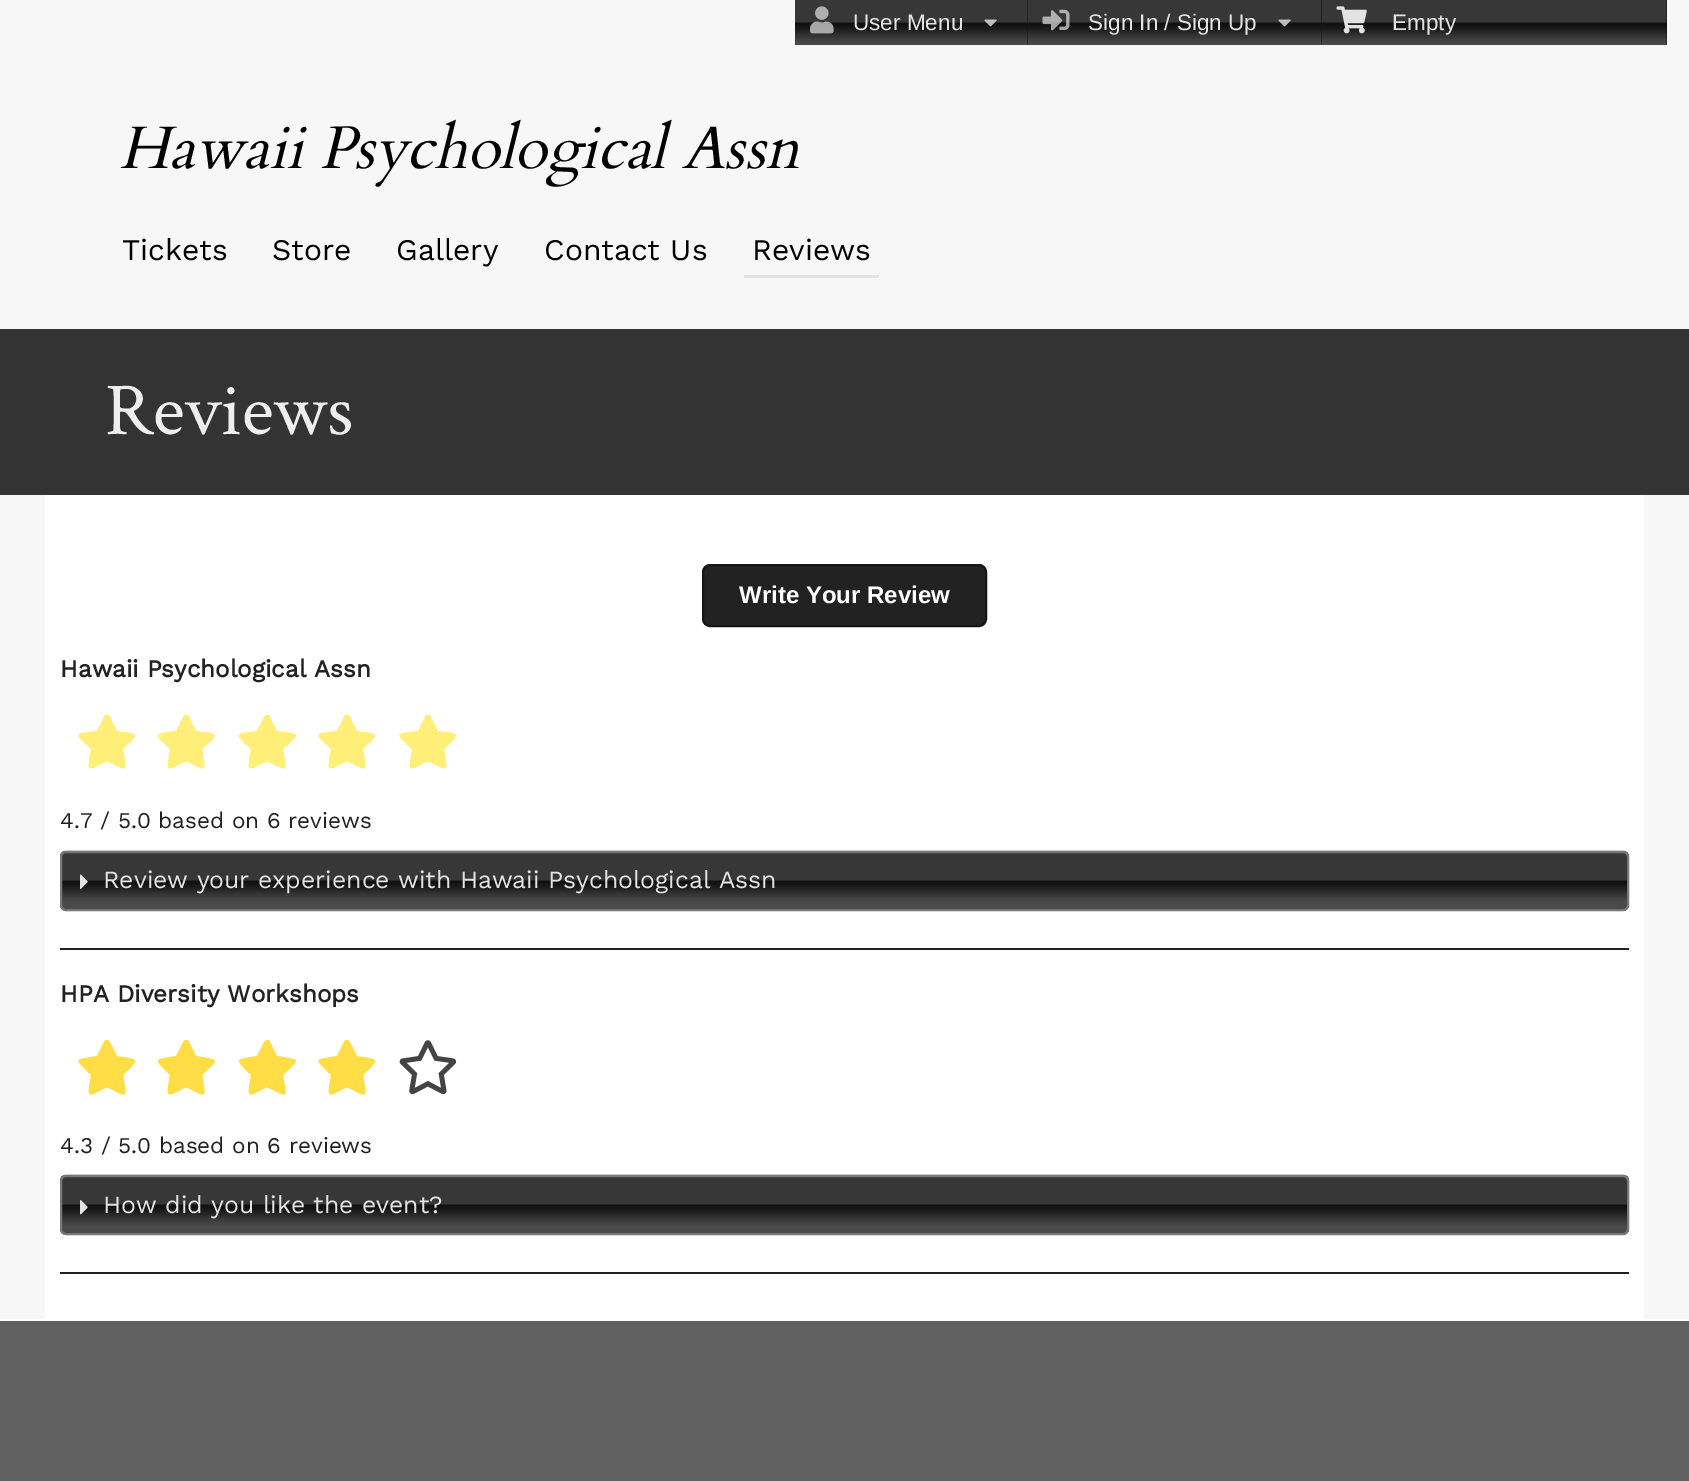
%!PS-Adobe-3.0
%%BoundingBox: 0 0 1689 1481
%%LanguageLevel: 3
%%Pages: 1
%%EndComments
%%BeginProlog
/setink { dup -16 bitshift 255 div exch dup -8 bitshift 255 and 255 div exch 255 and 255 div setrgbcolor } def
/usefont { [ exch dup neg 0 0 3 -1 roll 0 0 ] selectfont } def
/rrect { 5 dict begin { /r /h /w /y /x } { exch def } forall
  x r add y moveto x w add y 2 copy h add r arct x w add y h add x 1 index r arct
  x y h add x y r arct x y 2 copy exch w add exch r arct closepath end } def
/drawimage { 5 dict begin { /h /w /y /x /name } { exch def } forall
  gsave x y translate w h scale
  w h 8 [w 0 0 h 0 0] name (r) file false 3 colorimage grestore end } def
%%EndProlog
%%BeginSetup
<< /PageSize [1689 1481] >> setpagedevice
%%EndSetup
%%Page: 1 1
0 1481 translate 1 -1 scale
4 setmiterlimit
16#606060 setink
0 0 1689 1481 rectfill
16#F7F7F7 setink
0 0 1689 329 rectfill
16#111111 setink
1027 0 1 45 rectfill
(img1.raw) 795 0 233 45 drawimage
(img2.raw) 810 6 24 28 drawimage
/LiberationSans-Regular 22.5 usefont
16#E3E3E3 setink
853 30 moveto (User Menu) show
(img3.raw) 984 19 13 8 drawimage
16#111111 setink
1321 0 1 45 rectfill
(img4.raw) 1028 0 294 45 drawimage
(img5.raw) 1042 9 28 22 drawimage
16#E3E3E3 setink
1088 30 moveto (Sign In / Sign Up) show
(img3.raw) 1278 19 13 8 drawimage
16#111111 setink
1666 0 1 45 rectfill
(img6.raw) 1322 0 345 45 drawimage
(img7.raw) 1336 6 31 28 drawimage
16#E3E3E3 setink
1392 30 moveto (Empty) show
/Cardo-Italic 60 usefont
16#020202 setink
119 168 moveto (Hawaii Psychological Assn) show
/WorkSans-Regular 30 usefont
[
    [(Tickets) 122 260]
    [(Store) 272 260]
    [(Gallery) 396 260]
    [(Contact Us) 544 260]
] { aload pop moveto show } forall
16#E3E3E3 setink
744 275 135 3 rectfill
16#020202 setink
752 260 moveto (Reviews) show
[
    [0 495 1689 824 16#F7F7F7]
    [0 1319 1689 2 16#FFFFFF]
    [0 329 1689 166 16#333333]
] { aload pop setink rectfill } forall
/CrimsonText-Regular 75 usefont
16#EEEEEE setink
105 434 moveto (Reviews) show
16#FFFFFF setink
45 495 1599 824 rectfill
16#222222 setink
703 565 283 61 7 rrect gsave fill grestore
16#151515 setink
2 setlinewidth
stroke
/LiberationSans-Bold 24 usefont
16#FFFFFF setink
739 603 moveto (Write Your Review) show
/WorkSans-Bold 24.25 usefont
16#222222 setink
60 677 moveto (Hawaii Psychological Assn) show
60 948 1569 2 rectfill
16#FFEE77 setink
104 717 moveto 104 715 105 715 107 715 curveto 108 715 109 715 110 717 curveto 117 731 lineto 140 734 140 733 123 749 curveto 127 773 128 772 107 761 curveto 86 772 87 773 91 749 curveto 74 733 73 734 97 731 curveto closepath fill
183 717 moveto 184 715 185 715 186 715 curveto 188 715 189 715 189 717 curveto 196 731 lineto 220 734 220 733 202 749 curveto 206 773 208 772 186 761 curveto 165 772 166 773 170 749 curveto 153 733 153 734 176 731 curveto closepath fill
264 717 moveto 265 715 266 715 267 715 curveto 269 715 270 715 270 717 curveto 277 731 lineto 301 734 301 733 283 749 curveto 287 773 289 772 267 761 curveto 246 772 247 773 251 749 curveto 234 733 234 734 257 731 curveto closepath fill
344 717 moveto 344 715 345 715 347 715 curveto 348 715 349 715 350 717 curveto 357 731 lineto 380 734 380 733 363 749 curveto 367 773 368 772 347 761 curveto 326 772 327 773 331 749 curveto 314 733 313 734 337 731 curveto closepath fill
425 717 moveto 425 715 426 715 428 715 curveto 429 715 430 715 431 717 curveto 438 731 lineto 461 734 461 733 444 749 curveto 448 773 449 772 428 761 curveto 407 772 408 773 412 749 curveto 395 733 394 734 418 731 curveto closepath fill
/WorkSans-Regular 22.5 usefont
16#222222 setink
60 828 moveto (4.7 / 5.0 based on 6 reviews) show
(img8.raw) 60 850 1569 61 drawimage
16#777777 setink
61 852 1567 58 5 rrect stroke
(img9.raw) 80 874 8 15 drawimage
/WorkSans-Regular 24.75 usefont
16#E3E3E3 setink
103 888 moveto (Review your experience with Hawaii Psychological Assn) show
/WorkSans-Bold 24.25 usefont
16#222222 setink
60 1002 moveto (HPA Diversity Workshops) show
60 1272 1569 2 rectfill
16#FFDD44 setink
104 1042 moveto 104 1041 105 1040 107 1040 curveto 108 1040 109 1041 110 1042 curveto 117 1056 lineto 140 1060 140 1058 123 1075 curveto 127 1099 128 1098 107 1087 curveto 86 1098 87 1099 91 1075 curveto 74 1058 73 1060 97 1056 curveto closepath fill
183 1042 moveto 184 1041 185 1040 186 1040 curveto 188 1040 189 1041 189 1042 curveto 196 1056 lineto 220 1060 220 1058 202 1075 curveto 206 1099 208 1098 186 1087 curveto 165 1098 166 1099 170 1075 curveto 153 1058 153 1060 176 1056 curveto closepath fill
264 1042 moveto 265 1041 266 1040 267 1040 curveto 269 1040 270 1041 270 1042 curveto 277 1056 lineto 301 1060 301 1058 283 1075 curveto 287 1099 289 1098 267 1087 curveto 246 1098 247 1099 251 1075 curveto 234 1058 234 1060 257 1056 curveto closepath fill
344 1042 moveto 344 1041 345 1040 347 1040 curveto 348 1040 349 1041 350 1042 curveto 357 1056 lineto 380 1060 380 1058 363 1075 curveto 367 1099 368 1098 347 1087 curveto 326 1098 327 1099 331 1075 curveto 314 1058 313 1060 337 1056 curveto closepath fill
(img10.raw) 399 1040 58 55 drawimage
/WorkSans-Regular 22.5 usefont
16#222222 setink
60 1153 moveto (4.3 / 5.0 based on 6 reviews) show
(img8.raw) 60 1174 1569 61 drawimage
16#777777 setink
61 1176 1567 58 5 rrect stroke
(img11.raw) 80 1200 8 15 drawimage
/WorkSans-Regular 24.75 usefont
16#E3E3E3 setink
103 1213 moveto (How did you like the event?) show
showpage
%%EOF
